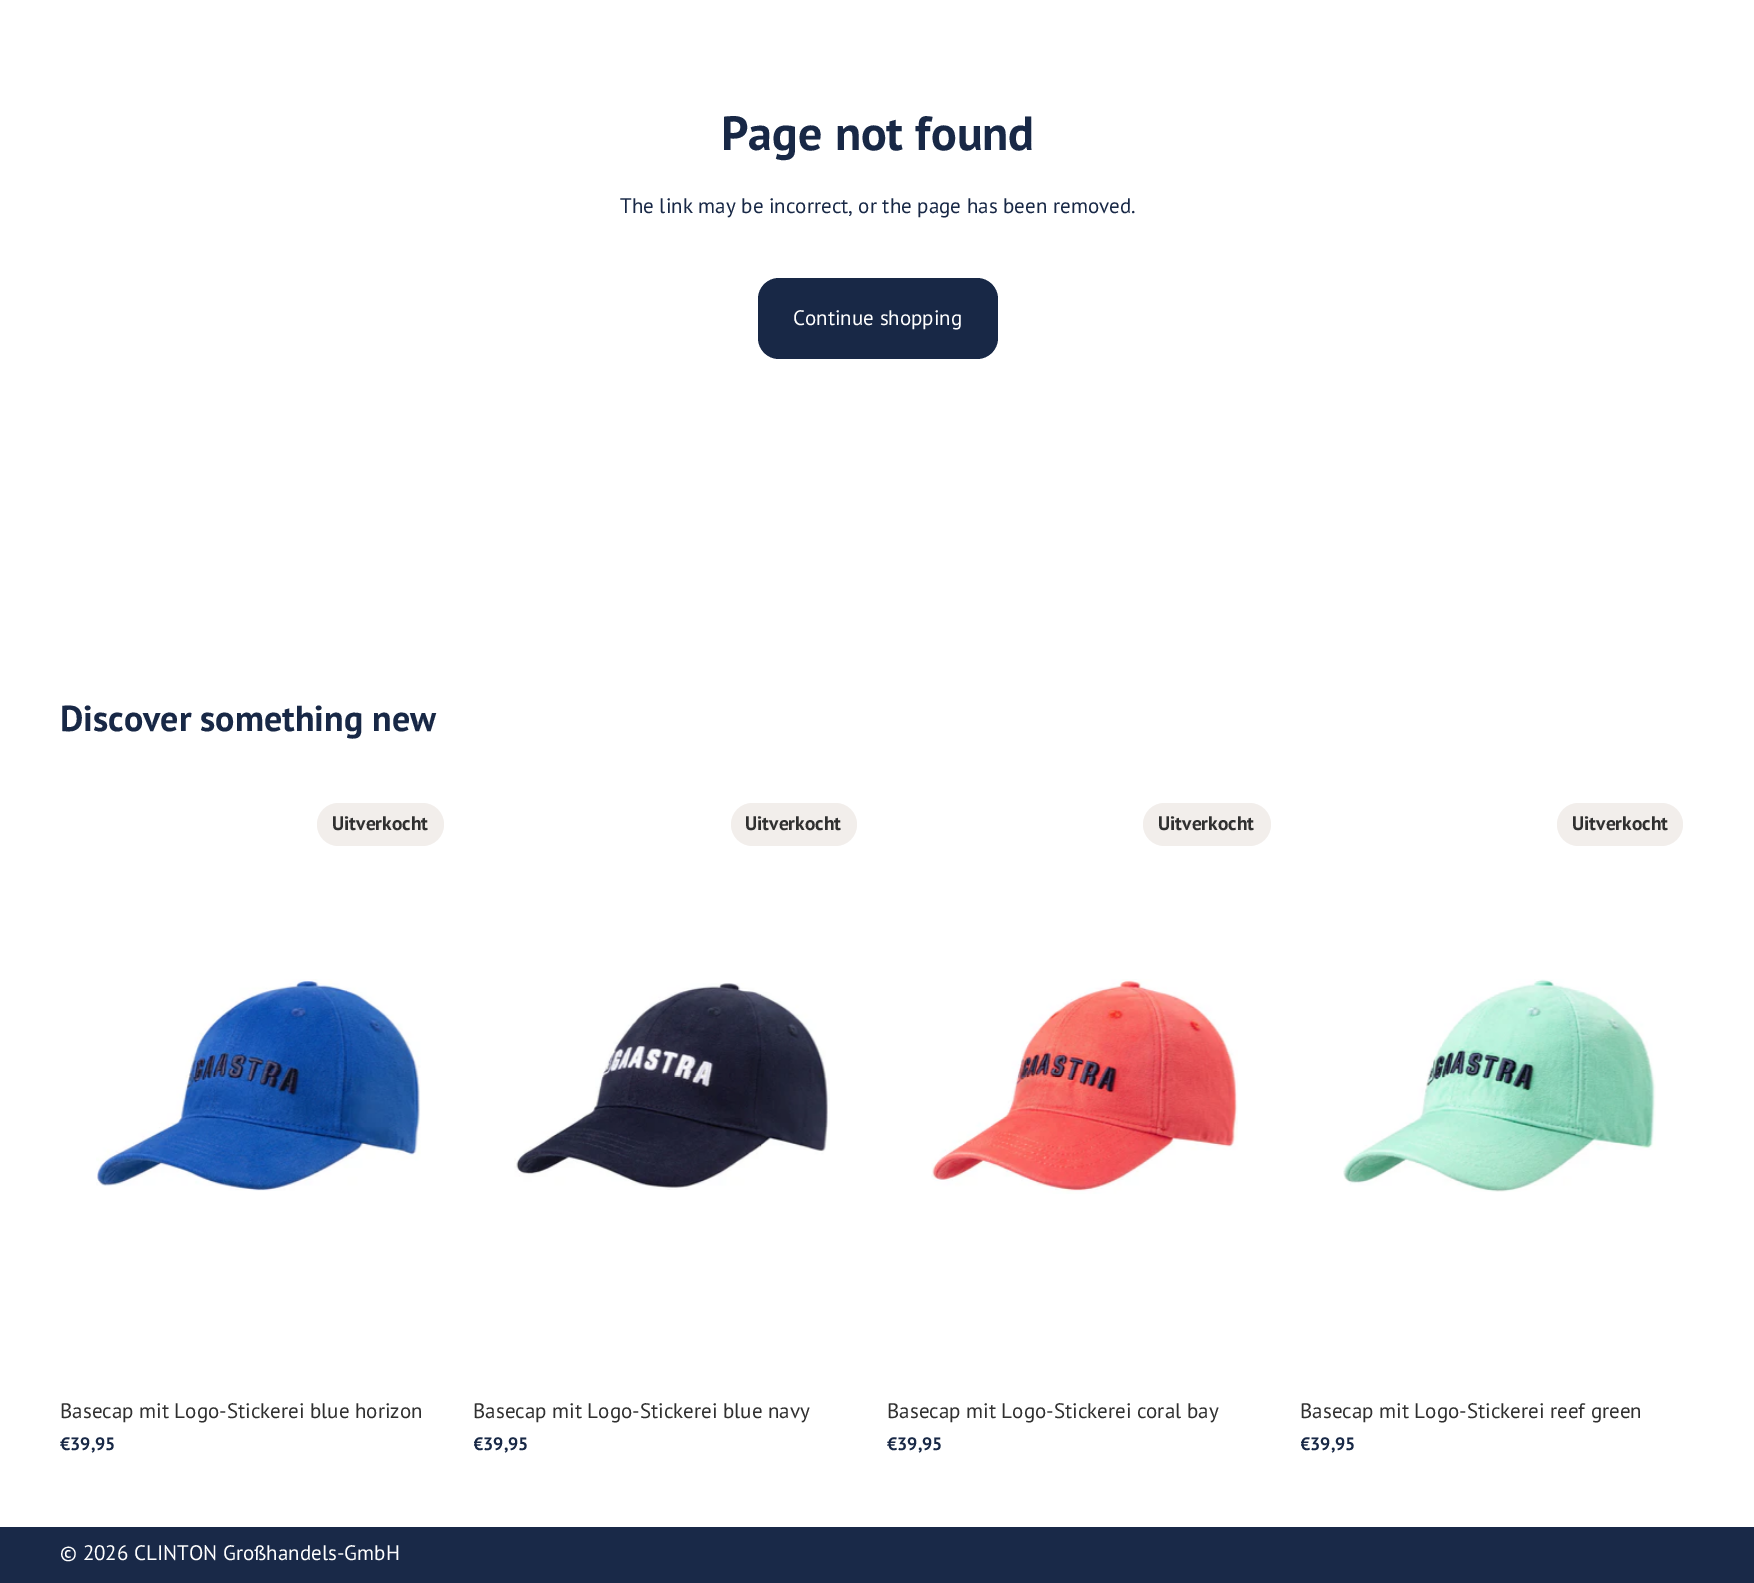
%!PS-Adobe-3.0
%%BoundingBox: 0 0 1754 1583
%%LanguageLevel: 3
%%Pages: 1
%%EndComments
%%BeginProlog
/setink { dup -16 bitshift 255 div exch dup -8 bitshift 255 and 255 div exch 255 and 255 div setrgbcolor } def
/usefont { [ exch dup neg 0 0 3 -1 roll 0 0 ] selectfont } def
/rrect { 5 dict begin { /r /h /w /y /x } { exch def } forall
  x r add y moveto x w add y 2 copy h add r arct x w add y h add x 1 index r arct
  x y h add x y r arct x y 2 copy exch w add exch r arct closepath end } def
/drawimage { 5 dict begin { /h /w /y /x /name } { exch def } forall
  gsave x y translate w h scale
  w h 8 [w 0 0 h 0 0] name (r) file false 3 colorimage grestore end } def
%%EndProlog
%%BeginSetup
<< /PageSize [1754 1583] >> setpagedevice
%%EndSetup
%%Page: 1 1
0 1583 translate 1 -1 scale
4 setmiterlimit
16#FFFFFF setink
0 0 1754 1583 rectfill
/PTSans-Bold 48 usefont
16#182846 setink
721 150 moveto (Page not found) show
/PTSans-Regular 21 usefont
620 213 moveto (The link may be incorrect, or the page has been removed.) show
758 278 240 81 21 rrect fill
16#FFFFFF setink
793 325 moveto (Continue shopping) show
/PTSans-Bold 36 usefont
16#182846 setink
60 731 moveto (Discover something new) show
16#F2EEEB setink
317 803 127 43 21.5 rrect fill
/PTSans-Bold 19.5 usefont
16#303030 setink
332 830 moveto (Uitverkocht) show
(img1.raw) 96 979 325 212 drawimage
/PTSans-Regular 21 usefont
60 1418 moveto (Basecap mit Logo-Stickerei blue horizon) show
/PTSans-Bold 18 usefont
16#182846 setink
60 1450 moveto (€39,95) show
16#F2EEEB setink
731 803 126 43 21.5 rrect fill
/PTSans-Bold 19.5 usefont
16#303030 setink
745 830 moveto (Uitverkocht) show
(img2.raw) 514 983 316 207 drawimage
/PTSans-Regular 21 usefont
473 1418 moveto (Basecap mit Logo-Stickerei blue navy) show
gsave
474 791 395 664 rectclip
/PTSans-Bold 18 usefont
16#182846 setink
473 1450 moveto (€39,95) show
grestore
16#F2EEEB setink
1143 803 128 43 21.5 rrect fill
/PTSans-Bold 19.5 usefont
16#303030 setink
1158 830 moveto (Uitverkocht) show
(img3.raw) 931 979 307 215 drawimage
/PTSans-Regular 21 usefont
887 1418 moveto (Basecap mit Logo-Stickerei coral bay) show
/PTSans-Bold 18 usefont
16#182846 setink
887 1450 moveto (€39,95) show
16#F2EEEB setink
1557 803 126 43 21.5 rrect fill
/PTSans-Bold 19.5 usefont
16#303030 setink
1572 830 moveto (Uitverkocht) show
(img4.raw) 1343 979 313 213 drawimage
/PTSans-Regular 21 usefont
1300 1418 moveto (Basecap mit Logo-Stickerei reef green) show
gsave
1301 791 394 664 rectclip
/PTSans-Bold 18 usefont
16#182846 setink
1300 1450 moveto (€39,95) show
grestore
16#192948 setink
0 1527 1754 56 rectfill
16#FFFFFF setink
60 1560 moveto (© 2026 CLINTON Großhandels-GmbH) show
showpage
%%EOF
